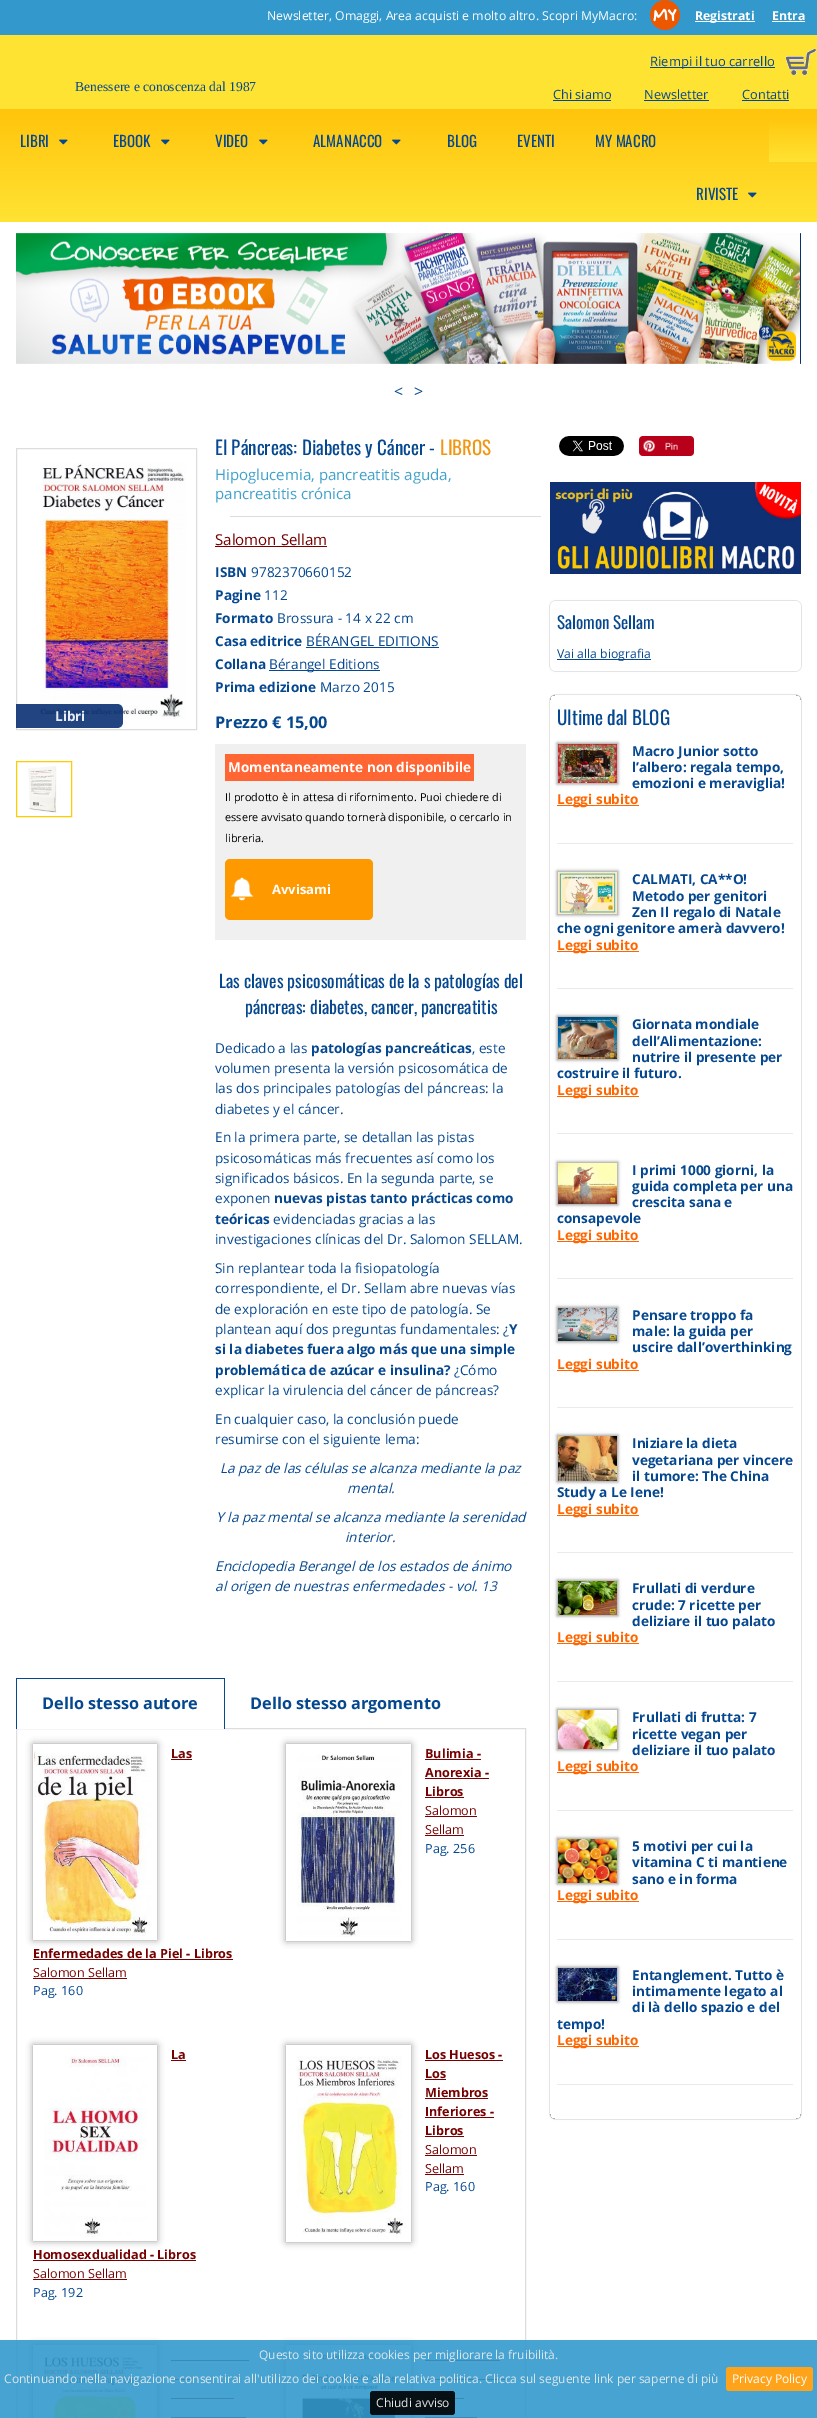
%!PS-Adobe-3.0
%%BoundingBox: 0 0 817 2418
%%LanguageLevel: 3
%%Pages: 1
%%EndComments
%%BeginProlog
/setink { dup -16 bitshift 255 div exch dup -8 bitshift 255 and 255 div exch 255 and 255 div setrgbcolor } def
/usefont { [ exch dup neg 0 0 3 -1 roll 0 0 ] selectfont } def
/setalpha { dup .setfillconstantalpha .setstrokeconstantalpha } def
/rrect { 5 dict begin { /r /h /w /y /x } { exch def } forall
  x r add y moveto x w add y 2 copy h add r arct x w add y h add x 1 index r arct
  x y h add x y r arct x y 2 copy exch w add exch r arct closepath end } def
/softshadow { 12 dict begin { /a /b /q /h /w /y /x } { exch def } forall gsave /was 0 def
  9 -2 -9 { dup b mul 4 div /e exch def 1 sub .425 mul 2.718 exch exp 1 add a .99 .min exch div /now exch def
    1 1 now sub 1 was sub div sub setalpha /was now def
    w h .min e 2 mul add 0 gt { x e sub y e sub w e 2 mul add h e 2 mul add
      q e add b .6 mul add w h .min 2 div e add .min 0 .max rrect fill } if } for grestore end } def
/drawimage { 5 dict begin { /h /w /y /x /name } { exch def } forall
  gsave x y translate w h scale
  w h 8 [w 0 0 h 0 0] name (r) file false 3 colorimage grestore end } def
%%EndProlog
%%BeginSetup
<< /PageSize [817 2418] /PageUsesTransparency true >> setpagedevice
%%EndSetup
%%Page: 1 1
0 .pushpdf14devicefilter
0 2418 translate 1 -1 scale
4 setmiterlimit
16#FFFFFF setink
0 0 817 2418 rectfill
16#3399CC setink
0 0 817 35 rectfill
/OpenSans-Regular 12.25 usefont
16#FFFFFF setink
267 20 moveto (Newsletter, Omaggi, Area acquisti e molto altro. Scopri MyMacro:) show
(img1.raw) 650 0 30 30 drawimage
695 21 60 1 rectfill
/OpenSans-Bold 12.25 usefont
695 20 moveto (Registrati) show
772 20 moveto (Entra) show
[
    [772 21 33 1 16#FFFFFF]
    [0 35 817 74 16#FFE333]
    [650 67 125 1 16#064890]
] { aload pop setink rectfill } forall
/OpenSans-Regular 13 usefont
650 66 moveto (Riempi il tuo carrello) show
(img2.raw) 786 49 30 26 drawimage
/LiberationSerif-Regular 13.6 usefont
75 91 moveto (Benessere e conoscenza dal 1987) show
/OpenSans-Regular 12.75 usefont
553 99 moveto (Chi siamo) show
553 100 58 1 rectfill
644 99 moveto (Newsletter) show
644 100 65 1 rectfill
742 99 moveto (Contatti) show
742 100 47 1 rectfill
gsave 0 109 moveto 817 109 lineto 817 222 lineto 0 222 lineto closepath clip newpath
<< /ShadingType 2 /ColorSpace /DeviceRGB /Coords [409 109 409 222] /Extend [true true] /Function << /FunctionType 2 /Domain [0 1] /C0 [1 0.769 0.043] /C1 [1 0.89 0.2] /N 1 >> >> shfill grestore
/Oswald-Regular 15 usefont
20 147 moveto (LIBRI) show
(img3.raw) 59 139 9 6 drawimage
113 147 moveto (EBOOK) show
(img3.raw) 161 139 9 6 drawimage
215 147 moveto (VIDEO) show
(img3.raw) 259 139 9 6 drawimage
313 147 moveto (ALMANACCO) show
(img3.raw) 392 139 9 6 drawimage
[
    [(BLOG) 447 147]
    [(EVENTI) 517 147]
    [(MY MACRO) 595 147]
] { aload pop moveto show } forall
gsave 769 123 moveto 817 123 lineto 817 162 lineto 769 162 lineto closepath clip newpath
<< /ShadingType 2 /ColorSpace /DeviceRGB /Coords [793 114 793 162] /Extend [true true] /Function << /FunctionType 2 /Domain [0 1] /C0 [1 0.769 0.043] /C1 [1 0.89 0.2] /N 1 >> >> shfill grestore
696 200 moveto (RIVISTE) show
(img4.raw) 748 192 9 6 drawimage
(img5.raw) 16 233 784 131 drawimage
(img6.raw) 800 233 1 131 drawimage
/OpenSans-Regular 16 usefont
394 397 moveto (<) show
414 397 moveto (>) show
/Oswald-Regular 19 usefont
215 455 moveto (El Páncreas: Diabetes y Cáncer -) show
16#F19612 setink
440 455 moveto (LIBROS) show
/OpenSans-Regular 15 usefont
16#41A1CB setink
215 480 moveto (Hipoglucemia, pancreatitis aguda,) show
215 499 moveto (pancreatitis crónica) show
16#DDDDDD setink
230 516 311 1 rectfill
16#770000 setink
215 545 moveto (Salomon Sellam) show
215 546 112 1 rectfill
16#DDDDDD setink
16.5 448.5 180 281 rectstroke
(img7.raw) 40 463 146 256 drawimage
0.9 setalpha
16#0A3174 setink
16 704 moveto 117 704 lineto 120.5 704 123 706.5 123 710 curveto 123 722 lineto 123 725.5 120.5 728 117 728 curveto 16 728 lineto closepath fill
/OpenSans-Bold 13.5 usefont
1 setalpha
16#E9ECF2 setink
55 721 moveto (Libri) show
16#FFCC00 setink
16.5 761.5 55 55 rectstroke
(img8.raw) 28 766 29 47 drawimage
/OpenSans-Bold 13.6 usefont
16#064890 setink
215 577 moveto (ISBN) show
/OpenSans-Regular 13.6 usefont
251 577 moveto (9782370660152) show
/OpenSans-Bold 13.6 usefont
215 600 moveto (Pagine) show
/OpenSans-Regular 13.6 usefont
264 600 moveto (112) show
/OpenSans-Bold 13.6 usefont
215 623 moveto (Formato) show
/OpenSans-Regular 13.6 usefont
277 623 moveto (Brossura - 14 x 22 cm) show
/OpenSans-Bold 13.6 usefont
215 646 moveto (Casa editrice) show
/OpenSans-Regular 13.6 usefont
306 646 moveto (BÉRANGEL EDITIONS) show
306 647 133 1 rectfill
/OpenSans-Bold 13.6 usefont
215 669 moveto (Collana) show
269 670 111 1 rectfill
/OpenSans-Regular 13.6 usefont
269 669 moveto (Bérangel Editions) show
/OpenSans-Bold 13.6 usefont
215 692 moveto (Prima edizione) show
/OpenSans-Regular 13.6 usefont
320 692 moveto (Marzo 2015) show
/OpenSans-Bold 16.25 usefont
215 728 moveto (Prezzo € 15,00) show
16#F0F0F0 setink
215 744 311 196 rectfill
16#FF6633 setink
225 754 249 27 rectfill
/OpenSans-Bold 13.6 usefont
16#FFFFFF setink
228 772 moveto (Momentaneamente non disponibile) show
/OpenSans-Regular 10.9 usefont
16#000000 setink
[
    [(Il prodotto è in attesa di rifornimento. Puoi chiedere di) 225 801]
    [(essere avvisato quando tornerà disponibile, o cercarlo in) 225 821]
    [(libreria.) 225 842]
] { aload pop moveto show } forall
16#FF9900 setink
225 859 148 61 5 rrect fill
(img9.raw) 230 877 24 24 drawimage
/OpenSans-Bold 13 usefont
16#FFFFFF setink
272 894 moveto (Avvisami) show
/Oswald-Regular 17.7 usefont
16#064890 setink
219 988 moveto (Las claves psicosomáticas de la s patologías del) show
245 1014 moveto (páncreas: diabetes, cancer, pancreatitis) show
/OpenSans-Regular 13.6 usefont
215 1053 moveto (Dedicado a las) show
/OpenSans-Bold 13.6 usefont
311 1053 moveto (patologías pancreáticas) show
/OpenSans-Regular 13.6 usefont
[
    [(, este) 472 1053]
    [(volumen presenta la versión psicosomática de) 215 1073]
    [(las dos principales patologías del páncreas: la) 215 1093]
    [(diabetes y el cáncer.) 215 1114]
    [(En la primera parte, se detallan las pistas) 215 1142]
    [(psicosomáticas más frecuentes así como los) 215 1163]
    [(significados básicos. En la segunda parte, se) 215 1183]
    [(exponen) 215 1203]
] { aload pop moveto show } forall
/OpenSans-Bold 13.6 usefont
274 1203 moveto (nuevas pistas tanto prácticas como) show
215 1224 moveto (teóricas) show
/OpenSans-Regular 13.6 usefont
[
    [(evidenciadas gracias a las) 273 1224]
    [(investigaciones clínicas del Dr. Salomon SELLAM.) 215 1244]
    [(Sin replantear toda la fisiopatología) 215 1273]
    [(correspondiente, el Dr. Sellam abre nuevas vías) 215 1293]
    [(de exploración en este tipo de patología. Se) 215 1314]
    [(plantean aquí dos preguntas fundamentales: ¿) 215 1334]
] { aload pop moveto show } forall
/OpenSans-Bold 13.6 usefont
[
    [(Y) 509 1334]
    [(si la diabetes fuera algo más que una simple) 215 1354]
    [(problemática de azúcar e insulina?) 215 1375]
] { aload pop moveto show } forall
/OpenSans-Regular 13.6 usefont
[
    [(¿Cómo) 454 1375]
    [(explicar la virulencia del cáncer de páncreas?) 215 1395]
    [(En cualquier caso, la conclusión puede) 215 1424]
    [(resumirse con el siguiente lema:) 215 1444]
] { aload pop moveto show } forall
/OpenSans-Italic 13.6 usefont
[
    [(La paz de las células se alcanza mediante la paz) 220 1473]
    [(mental.) 347 1493]
    [(Y la paz mental se alcanza mediante la serenidad) 216 1522]
    [(interior.) 345 1542]
    [(Enciclopedia Berangel de los estados de ánimo) 215 1571]
    [(al origen de nuestras enfermedades - vol. 13) 215 1591]
] { aload pop moveto show } forall
16#DDDDDD setink
16.5 1728.5 509 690 rectstroke
[
    [17 1728 207 1 16#FFFFFF]
    [16 1678 209 1 16#064890]
    [224 1678 1 51 16#064890]
    [16 1678 1 51 16#064890]
] { aload pop setink rectfill } forall
/OpenSans-Bold 16.25 usefont
42 1709 moveto (Dello stesso autore) show
250 1709 moveto (Dello stesso argomento) show
gsave
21 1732 moveto 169 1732 lineto 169 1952 lineto 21 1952 lineto closepath 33 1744 moveto 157 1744 lineto 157 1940 lineto 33 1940 lineto closepath eoclip newpath
16#999999 setink
33 1744 124 196 0 3.5 1 softshadow
grestore
(img10.raw) 34 1750 118 186 drawimage
/OpenSans-Bold 12.6 usefont
16#770000 setink
171 1758 moveto (Las) show
171 1759 21 1 rectfill
33 1958 moveto (Enfermedades de la Piel - Libros) show
33 1959 200 1 rectfill
/OpenSans-Regular 12.6 usefont
33 1977 moveto (Salomon Sellam) show
33 1978 94 1 rectfill
16#064890 setink
33 1995 moveto (Pag. 160) show
gsave
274 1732 moveto 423 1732 lineto 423 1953 lineto 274 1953 lineto closepath 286 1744 moveto 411 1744 lineto 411 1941 lineto 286 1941 lineto closepath eoclip newpath
16#999999 setink
286 1744 125 197 0 3.5 1 softshadow
grestore
(img11.raw) 297 1755 104 182 drawimage
/OpenSans-Bold 12.6 usefont
16#770000 setink
425 1758 moveto (Bulimia -) show
425 1759 56 1 rectfill
425 1777 moveto (Anorexia -) show
425 1778 64 1 rectfill
425 1796 moveto (Libros) show
425 1797 39 1 rectfill
/OpenSans-Regular 12.6 usefont
425 1815 moveto (Salomon) show
425 1816 52 1 rectfill
425 1834 moveto (Sellam) show
425 1835 39 1 rectfill
16#064890 setink
425 1853 moveto (Pag. 256) show
gsave
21 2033 moveto 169 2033 lineto 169 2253 lineto 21 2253 lineto closepath 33 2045 moveto 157 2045 lineto 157 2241 lineto 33 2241 lineto closepath eoclip newpath
16#999999 setink
33 2045 124 196 0 3.5 1 softshadow
grestore
(img12.raw) 44 2056 103 181 drawimage
/OpenSans-Bold 12.6 usefont
16#770000 setink
171 2059 moveto (La) show
171 2060 15 1 rectfill
33 2259 moveto (Homosexdualidad - Libros) show
33 2260 163 1 rectfill
/OpenSans-Regular 12.6 usefont
33 2278 moveto (Salomon Sellam) show
33 2279 94 1 rectfill
16#064890 setink
33 2297 moveto (Pag. 192) show
gsave
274 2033 moveto 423 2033 lineto 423 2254 lineto 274 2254 lineto closepath 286 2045 moveto 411 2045 lineto 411 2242 lineto 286 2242 lineto closepath eoclip newpath
16#999999 setink
286 2045 125 197 0 3.5 1 softshadow
grestore
(img13.raw) 297 2056 109 182 drawimage
/OpenSans-Bold 12.6 usefont
16#770000 setink
425 2059 moveto (Los Huesos -) show
425 2060 78 1 rectfill
425 2078 moveto (Los) show
425 2079 21 1 rectfill
425 2097 moveto (Miembros) show
425 2098 63 1 rectfill
425 2116 moveto (Inferiores -) show
425 2117 69 1 rectfill
425 2135 moveto (Libros) show
425 2136 39 1 rectfill
/OpenSans-Regular 12.6 usefont
425 2154 moveto (Salomon) show
425 2155 52 1 rectfill
425 2173 moveto (Sellam) show
425 2174 39 1 rectfill
16#064890 setink
425 2191 moveto (Pag. 160) show
gsave
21 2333 moveto 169 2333 lineto 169 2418 lineto 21 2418 lineto closepath 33 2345 moveto 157 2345 lineto 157 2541 lineto 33 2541 lineto closepath eoclip newpath
16#999999 setink
33 2345 124 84 0 3.5 1 softshadow
grestore
(img14.raw) 43 2356 104 62 drawimage
[
    [171 2360 78 1 16#770000]
    [171 2379 21 1 16#770000]
    [171 2398 63 1 16#770000]
    [171 2417 75 1 16#770000]
] { aload pop setink rectfill } forall
gsave
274 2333 moveto 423 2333 lineto 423 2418 lineto 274 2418 lineto closepath 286 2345 moveto 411 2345 lineto 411 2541 lineto 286 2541 lineto closepath eoclip newpath
16#999999 setink
286 2345 125 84 0 3.5 1 softshadow
grestore
(img15.raw) 302 2351 94 67 drawimage
[
    [425 2360 75 1 16#770000]
    [425 2379 81 1 16#770000]
    [425 2398 39 1 16#770000]
    [425 2417 52 1 16#770000]
] { aload pop setink rectfill } forall
(img16.raw) 559 436 65 20 drawimage
(img17.raw) 639 436 55 20 drawimage
(img18.raw) 550 482 251 92 drawimage
16#999999 setink
550 601 251 70 5 0.5 1 softshadow
16#FFFFFF setink
550 601 251 70 5 rrect fill
/Oswald-Regular 17 usefont
16#064890 setink
557 629 moveto (Salomon Sellam) show
557 659 94 1 rectfill
/OpenSans-Regular 12.25 usefont
557 658 moveto (Vai alla biografia) show
gsave
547 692 moveto 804 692 lineto 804 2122 lineto 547 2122 lineto closepath 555 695 moveto 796 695 lineto 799 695 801 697 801 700 curveto 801 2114 lineto 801 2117 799 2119 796 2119 curveto 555 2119 lineto 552 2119 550 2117 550 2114 curveto 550 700 lineto 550 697 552 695 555 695 curveto closepath eoclip newpath
16#999999 setink
550 695 251 1424 5 0.5 1 softshadow
grestore
/Oswald-Regular 19 usefont
557 725 moveto (Ultime dal BLOG) show
16#999999 setink
557 743 61 41 0 1.5 1 softshadow
(img19.raw) 558 744 59 39 drawimage
/OpenSans-Bold 13.6 usefont
16#064890 setink
[
    [(Macro Junior sotto) 632 756]
    [(l’albero: regala tempo,) 632 772]
    [(emozioni e meraviglia!) 632 788]
] { aload pop moveto show } forall
16#FF6600 setink
557 805 82 1 rectfill
557 804 moveto (Leggi subito) show
16#EAEAEA setink
557 843 236 1 rectfill
16#999999 setink
557 871 61 44 0 1.5 1 softshadow
(img20.raw) 558 872 59 42 drawimage
16#064890 setink
[
    [(CALMATI, CA**O!) 632 884]
    [(Metodo per genitori) 632 901]
    [(Zen Il regalo di Natale) 632 917]
    [(che ogni genitore amerà davvero!) 557 933]
] { aload pop moveto show } forall
16#FF6600 setink
557 951 82 1 rectfill
557 950 moveto (Leggi subito) show
16#EAEAEA setink
557 988 236 1 rectfill
16#999999 setink
557 1016 61 44 0 1.5 1 softshadow
(img21.raw) 558 1017 59 42 drawimage
16#064890 setink
[
    [(Giornata mondiale) 632 1029]
    [(dell’Alimentazione:) 632 1046]
    [(nutrire il presente per) 632 1062]
    [(costruire il futuro.) 557 1078]
] { aload pop moveto show } forall
16#FF6600 setink
557 1096 82 1 rectfill
557 1095 moveto (Leggi subito) show
16#EAEAEA setink
557 1133 236 1 rectfill
16#999999 setink
557 1162 61 43 0 1.5 1 softshadow
(img22.raw) 558 1163 59 41 drawimage
16#064890 setink
[
    [(I primi 1000 giorni, la) 632 1175]
    [(guida completa per una) 632 1191]
    [(crescita sana e) 632 1207]
    [(consapevole) 557 1223]
] { aload pop moveto show } forall
16#FF6600 setink
557 1241 82 1 rectfill
557 1240 moveto (Leggi subito) show
16#EAEAEA setink
557 1278 236 1 rectfill
16#999999 setink
557 1307 61 35 0 1.5 1 softshadow
(img23.raw) 558 1308 59 33 drawimage
16#064890 setink
[
    [(Pensare troppo fa) 632 1320]
    [(male: la guida per) 632 1336]
    [(uscire dall’overthinking) 632 1352]
] { aload pop moveto show } forall
16#FF6600 setink
557 1370 82 1 rectfill
557 1369 moveto (Leggi subito) show
16#EAEAEA setink
557 1407 236 1 rectfill
16#999999 setink
557 1435 61 47 0 1.5 1 softshadow
(img24.raw) 558 1436 59 45 drawimage
16#064890 setink
[
    [(Iniziare la dieta) 632 1448]
    [(vegetariana per vincere) 632 1465]
    [(il tumore: The China) 632 1481]
    [(Study a Le Iene!) 557 1497]
] { aload pop moveto show } forall
16#FF6600 setink
557 1515 82 1 rectfill
557 1514 moveto (Leggi subito) show
16#EAEAEA setink
557 1552 236 1 rectfill
16#999999 setink
557 1580 61 36 0 1.5 1 softshadow
(img25.raw) 558 1581 59 34 drawimage
16#064890 setink
[
    [(Frullati di verdure) 632 1593]
    [(crude: 7 ricette per) 632 1610]
    [(deliziare il tuo palato) 632 1626]
] { aload pop moveto show } forall
16#FF6600 setink
557 1643 82 1 rectfill
557 1642 moveto (Leggi subito) show
16#EAEAEA setink
557 1681 236 1 rectfill
16#999999 setink
557 1709 61 41 0 1.5 1 softshadow
(img26.raw) 558 1710 59 39 drawimage
16#064890 setink
[
    [(Frullati di frutta: 7) 632 1722]
    [(ricette vegan per) 632 1739]
    [(deliziare il tuo palato) 632 1755]
] { aload pop moveto show } forall
16#FF6600 setink
557 1772 82 1 rectfill
557 1771 moveto (Leggi subito) show
16#EAEAEA setink
557 1810 236 1 rectfill
16#999999 setink
557 1838 61 46 0 1.5 1 softshadow
(img27.raw) 558 1839 59 44 drawimage
16#064890 setink
[
    [(5 motivi per cui la) 632 1851]
    [(vitamina C ti mantiene) 632 1867]
    [(sano e in forma) 632 1884]
] { aload pop moveto show } forall
16#FF6600 setink
557 1901 82 1 rectfill
557 1900 moveto (Leggi subito) show
16#EAEAEA setink
557 1939 236 1 rectfill
16#999999 setink
557 1967 61 35 0 1.5 1 softshadow
(img28.raw) 558 1968 59 33 drawimage
16#064890 setink
[
    [(Entanglement. Tutto è) 632 1980]
    [(intimamente legato al) 632 1996]
    [(di là dello spazio e del) 632 2012]
    [(tempo!) 557 2029]
] { aload pop moveto show } forall
16#FF6600 setink
557 2046 82 1 rectfill
557 2045 moveto (Leggi subito) show
16#EAEAEA setink
557 2084 236 1 rectfill
0.9 setalpha
16#3399CC setink
0 2340 817 78 rectfill
/OpenSans-Regular 12 usefont
1 setalpha
16#DDE6EB setink
259 2359 moveto (Questo sito utilizza cookies per migliorare la fruibilità.) show
4 2383 moveto (Continuando nella navigazione consentirai all'utilizzo dei cookie e alla relativa politica. Clicca sul seguente link per saperne di più) show
16#FFA31A setink
726 2367 87 24 3 rrect fill
16#FFFFFF setink
732 2383 moveto (Privacy Policy) show
0.9 setalpha
16#000000 setink
370 2391 85 24 3 rrect fill
1 setalpha
16#E6E7E8 setink
376 2407 moveto (Chiudi avviso) show
.poppdf14devicefilter showpage
%%EOF
